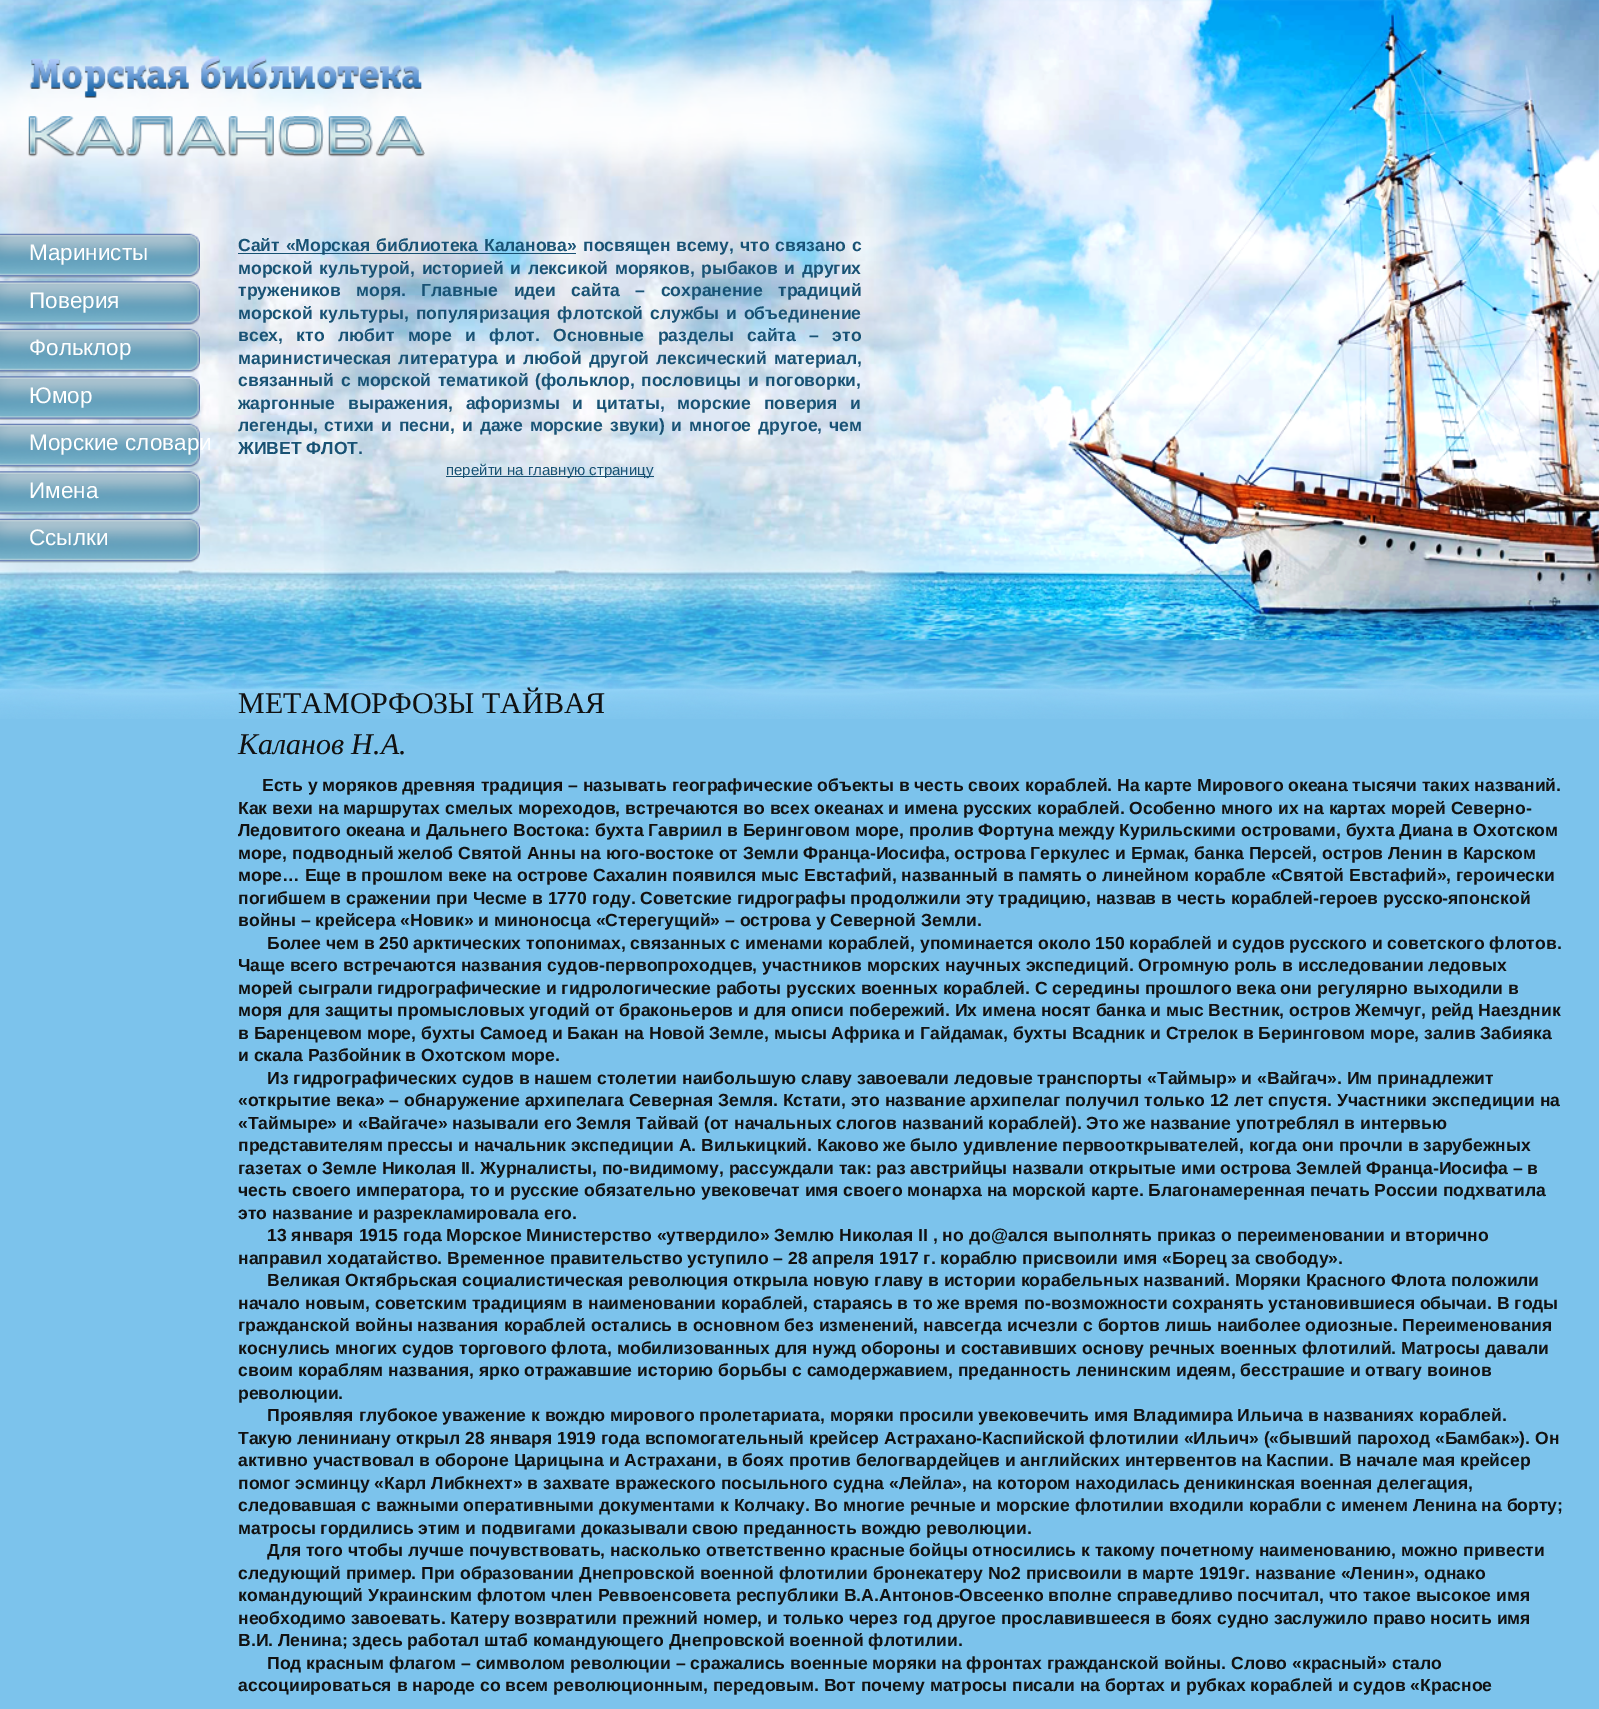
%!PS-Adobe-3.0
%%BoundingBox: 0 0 1599 1709
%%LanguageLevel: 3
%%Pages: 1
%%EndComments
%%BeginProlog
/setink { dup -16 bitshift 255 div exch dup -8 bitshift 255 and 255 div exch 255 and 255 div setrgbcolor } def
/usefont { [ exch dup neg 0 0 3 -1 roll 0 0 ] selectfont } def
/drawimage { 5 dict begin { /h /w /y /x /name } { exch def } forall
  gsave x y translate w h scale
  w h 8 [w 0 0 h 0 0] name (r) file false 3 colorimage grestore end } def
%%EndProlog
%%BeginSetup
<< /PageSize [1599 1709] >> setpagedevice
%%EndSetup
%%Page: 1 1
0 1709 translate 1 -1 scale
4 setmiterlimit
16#7CC3EC setink
0 0 1599 1709 rectfill
(img1.raw) 0 0 1599 719 drawimage
(img2.raw) 28 55 397 102 drawimage
(img3.raw) 0 233 200 45 drawimage
/LiberationSans-Regular 22.5 usefont
16#FFFFFF setink
29 260 moveto (Маринисты) show
(img4.raw) 0 281 200 44 drawimage
29 308 moveto (Поверия) show
(img5.raw) 0 328 200 45 drawimage
29 355 moveto (Фольклор) show
(img6.raw) 0 376 200 44 drawimage
29 403 moveto (Юмор) show
(img7.raw) 0 423 200 45 drawimage
29 450 moveto (Морские словари) show
(img8.raw) 0 471 200 44 drawimage
29 498 moveto (Имена) show
(img9.raw) 0 518 200 45 drawimage
29 545 moveto (Ссылки) show
16#185274 setink
238 253 338 1 rectfill
/LiberationSans-Bold 17.55 usefont
238 251 moveto 1 0 32 (Сайт «Морская библиотека Каланова») widthshow
583 251 moveto 1 0 32 (посвящен всему, что связано с) widthshow
238 274 moveto 1.75 0 32 (морской культурой, историей и лексикой моряков, рыбаков и других) widthshow
238 296 moveto 10.5 0 32 (тружеников моря. Главные идеи сайта – сохранение традиций) widthshow
238 319 moveto 2 0 32 (морской культуры, популяризация флотской службы и объединение) widthshow
238 341 moveto 8.5 0 32 (всех, кто любит море и флот. Основные разделы сайта – это) widthshow
238 364 moveto 2.25 0 32 (маринистическая литература и любой другой лексический материал,) widthshow
238 386 moveto 1.5 0 32 (связанный с морской тематикой \(фольклор, пословицы и поговорки,) widthshow
gsave
238 234 623 375 rectclip
238 409 moveto 8 0 32 (жаргонные выражения, афоризмы и цитаты, морские поверия и) widthshow
grestore
238 431 moveto 2 0 32 (легенды, стихи и песни, и даже морские звуки\) и многое другое, чем) widthshow
238 454 moveto (ЖИВЕТ ФЛОТ.) show
446 476 208 1 rectfill
/LiberationSans-Regular 15 usefont
446 475 moveto (перейти на главную страницу) show
/LiberationSerif-Regular 30 usefont
16#111111 setink
238 713 moveto (МЕТАМОРФОЗЫ ТАЙВАЯ) show
/LiberationSerif-Italic 30 usefont
238 754 moveto (Каланов Н.А.) show
/LiberationSans-Bold 17.55 usefont
[
    [(Есть у моряков древняя традиция – называть географические объекты в честь своих кораблей. На карте Мирового океана тысячи таких названий.) 262 791]
    [(Как вехи на маршрутах смелых мореходов, встречаются во всех океанах и имена русских кораблей. Особенно много их на картах морей Северно-) 238 814]
    [(Ледовитого океана и Дальнего Востока: бухта Гавриил в Беринговом море, пролив Фортуна между Курильскими островами, бухта Диана в Охотском) 238 836]
    [(море, подводный желоб Святой Анны на юго-востоке от Земли Франца-Иосифа, острова Геркулес и Ермак, банка Персей, остров Ленин в Карском) 238 859]
    [(море… Еще в прошлом веке на острове Сахалин появился мыс Евстафий, названный в память о линейном корабле «Святой Евстафий», героически) 238 881]
    [(погибшем в сражении при Чесме в 1770 году. Советские гидрографы продолжили эту традицию, назвав в честь кораблей-героев русско-японской) 238 904]
    [(войны – крейсера «Новик» и миноносца «Стерегущий» – острова у Северной Земли.) 238 926]
    [(Более чем в 250 арктических топонимах, связанных с именами кораблей, упоминается около 150 кораблей и судов русского и советского флотов.) 267 949]
    [(Чаще всего встречаются названия судов-первопроходцев, участников морских научных экспедиций. Огромную роль в исследовании ледовых) 238 971]
    [(морей сыграли гидрографические и гидрологические работы русских военных кораблей. С середины прошлого века они регулярно выходили в) 238 994]
    [(моря для защиты промысловых угодий от браконьеров и для описи побережий. Их имена носят банка и мыс Вестник, остров Жемчуг, рейд Наездник) 238 1016]
    [(в Баренцевом море, бухты Самоед и Бакан на Новой Земле, мысы Африка и Гайдамак, бухты Всадник и Стрелок в Беринговом море, залив Забияка) 238 1039]
    [(и скала Разбойник в Охотском море.) 238 1061]
    [(Из гидрографических судов в нашем столетии наибольшую славу завоевали ледовые транспорты «Таймыр» и «Вайгач». Им принадлежит) 267 1084]
    [(«открытие века» – обнаружение архипелага Северная Земля. Кстати, это название архипелаг получил только 12 лет спустя. Участники экспедиции на) 238 1106]
    [(«Таймыре» и «Вайгаче» называли его Земля Тайвай \(от начальных слогов названий кораблей\). Это же название употреблял в интервью) 238 1129]
    [(представителям прессы и начальник экспедиции А. Вилькицкий. Каково же было удивление первооткрывателей, когда они прочли в зарубежных) 238 1151]
    [(газетах о Земле Николая II. Журналисты, по-видимому, рассуждали так: раз австрийцы назвали открытые ими острова Землей Франца-Иосифа – в) 238 1174]
    [(честь своего императора, то и русские обязательно увековечат имя своего монарха на морской карте. Благонамеренная печать России подхватила) 238 1196]
    [(это название и разрекламировала его.) 238 1219]
    [(13 января 1915 года Морское Министерство «утвердило» Землю Николая II , но до@ался выполнять приказ о переименовании и вторично) 267 1241]
    [(направил ходатайство. Временное правительство уступило – 28 апреля 1917 г. кораблю присвоили имя «Борец за свободу».) 238 1264]
    [(Великая Октябрьская социалистическая революция открыла новую главу в истории корабельных названий. Моряки Красного Флота положили) 267 1286]
    [(начало новым, советским традициям в наименовании кораблей, стараясь в то же время по-возможности сохранять установившиеся обычаи. В годы) 238 1309]
    [(гражданской войны названия кораблей остались в основном без изменений, навсегда исчезли с бортов лишь наиболее одиозные. Переименования) 238 1331]
    [(коснулись многих судов торгового флота, мобилизованных для нужд обороны и составивших основу речных военных флотилий. Матросы давали) 238 1354]
    [(своим кораблям названия, ярко отражавшие историю борьбы с самодержавием, преданность ленинским идеям, бесстрашие и отвагу воинов) 238 1376]
    [(революции.) 238 1399]
    [(Проявляя глубокое уважение к вождю мирового пролетариата, моряки просили увековечить имя Владимира Ильича в названиях кораблей.) 267 1421]
    [(Такую лениниану открыл 28 января 1919 года вспомогательный крейсер Астрахано-Каспийской флотилии «Ильич» \(«бывший пароход «Бамбак»\). Он) 238 1444]
    [(активно участвовал в обороне Царицына и Астрахани, в боях против белогвардейцев и английских интервентов на Каспии. В начале мая крейсер) 238 1466]
    [(помог эсминцу «Карл Либкнехт» в захвате вражеского посыльного судна «Лейла», на котором находилась деникинская военная делегация,) 238 1489]
    [(следовавшая с важными оперативными документами к Колчаку. Во многие речные и морские флотилии входили корабли с именем Ленина на борту;) 238 1511]
    [(матросы гордились этим и подвигами доказывали свою преданность вождю революции.) 238 1534]
    [(Для того чтобы лучше почувствовать, насколько ответственно красные бойцы относились к такому почетному наименованию, можно привести) 267 1556]
    [(следующий пример. При образовании Днепровской военной флотилии бронекатеру No2 присвоили в марте 1919г. название «Ленин», однако) 238 1579]
    [(командующий Украинским флотом член Реввоенсовета республики В.А.Антонов-Овсеенко вполне справедливо посчитал, что такое высокое имя) 238 1601]
    [(необходимо завоевать. Катеру возвратили прежний номер, и только через год другое прославившееся в боях судно заслужило право носить имя) 238 1624]
    [(В.И. Ленина; здесь работал штаб командующего Днепровской военной флотилии.) 238 1646]
    [(Под красным флагом – символом революции – сражались военные моряки на фронтах гражданской войны. Слово «красный» стало) 267 1669]
    [(ассоциироваться в народе со всем революционным, передовым. Вот почему матросы писали на бортах и рубках кораблей и судов «Красное) 238 1691]
] { aload pop moveto show } forall
showpage
%%EOF
